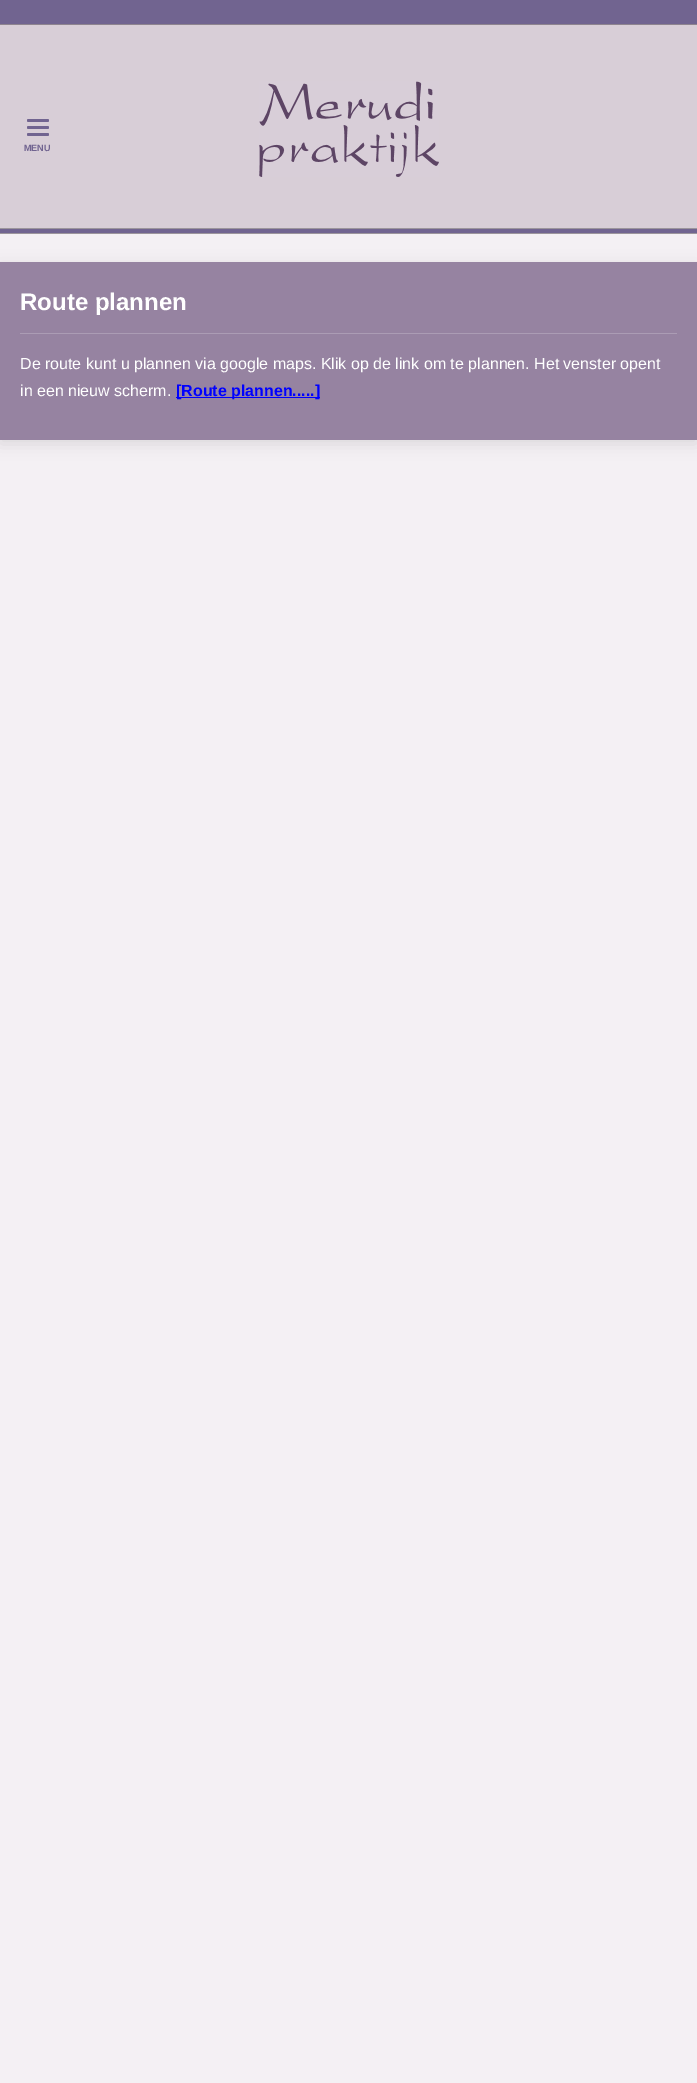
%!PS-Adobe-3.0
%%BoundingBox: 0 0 697 2083
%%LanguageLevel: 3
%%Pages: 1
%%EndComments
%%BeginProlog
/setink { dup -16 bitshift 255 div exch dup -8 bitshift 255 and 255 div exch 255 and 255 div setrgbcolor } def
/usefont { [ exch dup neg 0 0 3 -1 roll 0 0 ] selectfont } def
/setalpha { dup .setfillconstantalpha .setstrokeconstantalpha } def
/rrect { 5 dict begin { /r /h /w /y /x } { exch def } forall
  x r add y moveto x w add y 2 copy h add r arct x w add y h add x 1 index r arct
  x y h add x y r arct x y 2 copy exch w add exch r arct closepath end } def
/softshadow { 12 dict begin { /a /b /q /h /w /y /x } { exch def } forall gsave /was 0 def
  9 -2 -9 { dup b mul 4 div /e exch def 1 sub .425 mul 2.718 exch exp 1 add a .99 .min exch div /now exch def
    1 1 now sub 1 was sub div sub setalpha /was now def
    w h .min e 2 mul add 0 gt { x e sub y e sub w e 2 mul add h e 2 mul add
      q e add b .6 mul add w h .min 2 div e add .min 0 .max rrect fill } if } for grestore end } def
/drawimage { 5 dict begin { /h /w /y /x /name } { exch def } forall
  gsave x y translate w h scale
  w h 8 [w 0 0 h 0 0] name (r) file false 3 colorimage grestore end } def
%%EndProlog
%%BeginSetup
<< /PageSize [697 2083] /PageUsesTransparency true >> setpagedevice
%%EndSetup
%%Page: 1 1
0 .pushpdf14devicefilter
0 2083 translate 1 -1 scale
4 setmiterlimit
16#F4F0F4 setink
0 0 697 2083 rectfill
[
    [0 0 697 24 16#716490]
    [0 24 697 1 16#8E848F]
    [0 25 697 203 16#D8CED7]
] { aload pop setink rectfill } forall
16#716490 setink
27 126 22 3 1.5 rrect fill
27 119 22 3 1.5 rrect fill
27 133 22 3 1.5 rrect fill
/LiberationSans-Bold 9 usefont
24 151 moveto (MENU) show
(img1.raw) 259 81 180 96 drawimage
[
    [0 229 697 4 16#716490]
    [0 228 697 1 16#9C959C]
    [0 233 697 1 16#9C959C]
] { aload pop setink rectfill } forall
16#000000 setink
0 266 697 178 0 7.5 0.1 softshadow
16#9683A1 setink
0 262 697 178 rectfill
16#AB9CB4 setink
20 333 657 1 rectfill
/LiberationSans-Bold 24 usefont
16#FFFFFF setink
20 310 moveto (Route plannen) show
/LiberationSans-Regular 16 usefont
20 369 moveto (De route kunt u plannen via google maps. Klik op de link om te plannen. Het venster opent) show
20 396 moveto (in een nieuw scherm.) show
16#0000FF setink
176 397 144 1 rectfill
/LiberationSans-Bold 16 usefont
176 396 moveto ([Route plannen.....]) show
.poppdf14devicefilter showpage
%%EOF
